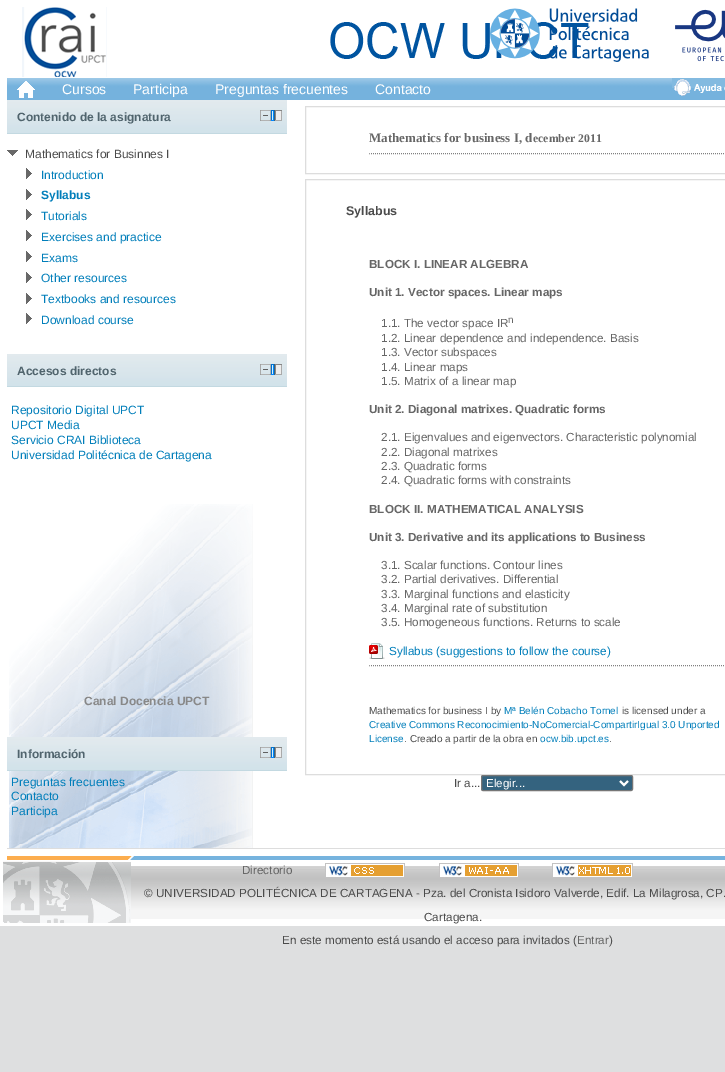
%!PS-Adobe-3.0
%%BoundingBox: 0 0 725 1072
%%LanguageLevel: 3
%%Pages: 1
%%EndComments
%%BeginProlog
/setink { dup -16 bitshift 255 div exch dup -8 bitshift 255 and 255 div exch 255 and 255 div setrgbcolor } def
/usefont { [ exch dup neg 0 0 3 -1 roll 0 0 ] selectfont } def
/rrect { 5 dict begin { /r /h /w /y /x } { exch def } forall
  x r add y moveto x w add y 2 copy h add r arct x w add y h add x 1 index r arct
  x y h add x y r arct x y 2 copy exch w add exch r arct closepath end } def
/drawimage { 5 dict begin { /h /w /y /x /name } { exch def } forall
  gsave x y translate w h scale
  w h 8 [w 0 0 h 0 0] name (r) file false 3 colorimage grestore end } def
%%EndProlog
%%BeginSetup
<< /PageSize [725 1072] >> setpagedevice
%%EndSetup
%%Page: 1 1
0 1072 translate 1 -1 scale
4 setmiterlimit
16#DEDFE0 setink
0 0 725 1072 rectfill
16#FFFFFF setink
0 0 725 926 rectfill
(img1.raw) 330 22 259 37 drawimage
(img2.raw) 22 7 85 70 drawimage
(img3.raw) 490 8 235 54 drawimage
(img4.raw) 7 78 718 22 drawimage
(img5.raw) 17 81 18 17 drawimage
/LiberationSans-Regular 14 usefont
[
    [(Cursos) 62 94]
    [(Participa) 133 94]
    [(Preguntas frecuentes) 215 94]
    [(Contacto) 375 94]
] { aload pop moveto show } forall
(img6.raw) 672 78 53 18 drawimage
(img7.raw) 9 504 244 344 drawimage
16#DDDDDD setink
7 848 718 1 rectfill
(img8.raw) 7 100 280 33 drawimage
16#C3D9E1 setink
7 133 280 1 rectfill
/LiberationSans-Bold 12 usefont
16#50646D setink
17 121 moveto (Contenido de la asignatura) show
(img9.raw) 260 110 11 11 drawimage
16#34637F setink
274 110 1 11 rectfill
(img10.raw) 271 110 11 11 drawimage
(img11.raw) 7 150 11 6 drawimage
/LiberationSans-Regular 12 usefont
16#4B4B4B setink
25 158 moveto (Mathematics for Businnes I) show
(img12.raw) 26 168 6 11 drawimage
16#007EBA setink
41 179 moveto (Introduction) show
(img12.raw) 26 189 6 11 drawimage
/LiberationSans-Bold 12 usefont
41 199 moveto (Syllabus) show
(img12.raw) 26 209 6 11 drawimage
/LiberationSans-Regular 12 usefont
41 220 moveto (Tutorials) show
(img12.raw) 26 230 6 11 drawimage
41 241 moveto (Exercises and practice) show
(img12.raw) 26 251 6 11 drawimage
41 262 moveto (Exams) show
(img12.raw) 26 272 6 11 drawimage
41 282 moveto (Other resources) show
(img12.raw) 26 293 6 11 drawimage
41 303 moveto (Textbooks and resources) show
(img12.raw) 26 313 6 11 drawimage
41 324 moveto (Download course) show
(img13.raw) 7 354 280 32 drawimage
16#C3D9E1 setink
7 386 280 1 rectfill
/LiberationSans-Bold 12 usefont
16#50646D setink
17 375 moveto (Accesos directos) show
(img14.raw) 260 364 11 11 drawimage
16#34637F setink
274 364 1 11 rectfill
(img10.raw) 271 364 11 11 drawimage
/LiberationSans-Regular 12 usefont
16#007EBA setink
[
    [(Repositorio Digital UPCT) 11 414]
    [(UPCT Media) 11 429]
    [(Servicio CRAI Biblioteca) 11 444]
    [(Universidad Politécnica de Cartagena) 11 459]
] { aload pop moveto show } forall
/LiberationSans-Bold 12 usefont
16#888888 setink
84 705 moveto (Canal Docencia UPCT) show
(img8.raw) 7 737 280 33 drawimage
16#C3D9E1 setink
7 770 280 1 rectfill
16#50646D setink
17 758 moveto (Información) show
(img9.raw) 260 747 11 11 drawimage
16#34637F setink
274 747 1 11 rectfill
(img10.raw) 271 747 11 11 drawimage
/LiberationSans-Regular 12 usefont
16#007EBA setink
[
    [(Preguntas frecuentes) 11 786]
    [(Contacto) 11 800]
    [(Participa) 11 815]
] { aload pop moveto show } forall
16#DDDDDD setink
305.5 106.5 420 67 rectstroke
/LiberationSerif-Bold 13 usefont
16#666666 setink
369 142 moveto (Mathematics for business I, d) show
/LiberationSerif-Bold 11.7 usefont
533 142 moveto (ecember 2011) show
16#808080 setink
[1 1] 0 setdash
369 153.5 moveto 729 153.5 lineto stroke
16#9F9F9F setink
369 153 1 1 rectfill
16#DDDDDD setink
[] 0 setdash
305.5 179.5 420 595 rectstroke
/LiberationSans-Bold 12.5 usefont
16#4B4B4B setink
346 215 moveto (Syllabus) show
/LiberationSans-Bold 11.7 usefont
16#666666 setink
369 268 moveto (BLOCK I. LINEAR ALGEBRA) show
369 296 moveto (Unit 1. Vector spaces. Linear maps) show
/LiberationSans-Regular 11.7 usefont
381 327 moveto (1.1. The vector space IR) show
/LiberationSans-Regular 10 usefont
508 323 moveto (n) show
/LiberationSans-Regular 11.7 usefont
[
    [(1.2. Linear dependence and independence. Basis) 381 342]
    [(1.3. Vector subspaces) 381 356]
    [(1.4. Linear maps) 381 371]
    [(1.5. Matrix of a linear map) 381 385]
] { aload pop moveto show } forall
/LiberationSans-Bold 11.7 usefont
369 413 moveto (Unit 2. Diagonal matrixes. Quadratic forms) show
/LiberationSans-Regular 11.7 usefont
[
    [(2.1. Eigenvalues and eigenvectors. Characteristic polynomial) 381 441]
    [(2.2. Diagonal matrixes) 381 456]
    [(2.3. Quadratic forms) 381 470]
    [(2.4. Quadratic forms with constraints) 381 484]
] { aload pop moveto show } forall
/LiberationSans-Bold 11.7 usefont
369 513 moveto (BLOCK II. MATHEMATICAL ANALYSIS) show
369 541 moveto (Unit 3. Derivative and its applications to Business) show
/LiberationSans-Regular 11.7 usefont
[
    [(3.1. Scalar functions. Contour lines) 381 569]
    [(3.2. Partial derivatives. Differential) 381 583]
    [(3.3. Marginal functions and elasticity) 381 598]
    [(3.4. Marginal rate of substitution) 381 612]
    [(3.5. Homogeneous functions. Returns to scale) 381 626]
] { aload pop moveto show } forall
(img15.raw) 369 643 16 16 drawimage
16#007EBA setink
389 655 moveto (Syllabus \(suggestions to follow the course\)) show
16#808080 setink
[1 1] 0 setdash
369 665.5 moveto 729 665.5 lineto stroke
16#9F9F9F setink
369 665 1 1 rectfill
/LiberationSans-Regular 10 usefont
16#4B4B4B setink
369 714 moveto (Mathematics for business I by) show
16#007EBA setink
504 714 moveto (Mª Belén Cobacho Tornel) show
16#4B4B4B setink
622 714 moveto (is licensed under a) show
16#007EBA setink
369 728 moveto (Creative Commons Reconocimiento-NoComercial-CompartirIgual 3.0 Unported) show
369 742 moveto (License) show
16#4B4B4B setink
404 742 moveto (. Creado a partir de la obra en) show
16#007EBA setink
540 742 moveto (ocw.bib.upct.es) show
16#4B4B4B setink
609 742 moveto (.) show
/LiberationSans-Regular 11.7 usefont
454 787 moveto (Ir a...) show
16#34637F setink
481.5 775.5 151 15 1.5 rrect gsave fill grestore
16#767676 setink
[] 0 setdash
stroke
16#FFFFFF setink
2 setlinewidth
620 781 moveto 624 785 lineto 628 781 lineto stroke
/LiberationSans-Regular 11.5 usefont
486 787 moveto (Elegir...) show
(img16.raw) 7 856 718 4 drawimage
(img17.raw) 131 866 594 53 drawimage
(img18.raw) 3 861 128 62 drawimage
/LiberationSans-Regular 11.7 usefont
16#666666 setink
242 874 moveto (Directorio) show
(img19.raw) 325 863 80 14 drawimage
(img20.raw) 439 863 80 15 drawimage
(img21.raw) 552 863 81 14 drawimage
16#4B4B4B setink
[
    [(© UNIVERSIDAD POLITÉCNICA DE CARTAGENA - Pza. del Cronista Isidoro Valverde, Edif. La Milagrosa, CP.) 144 897]
    [(Cartagena.) 424 921]
    [(En este momento está usando el acceso para invitados \() 282 944]
] { aload pop moveto show } forall
16#666666 setink
577 944 moveto (Entrar) show
16#4B4B4B setink
609 944 moveto (\)) show
showpage
%%EOF
